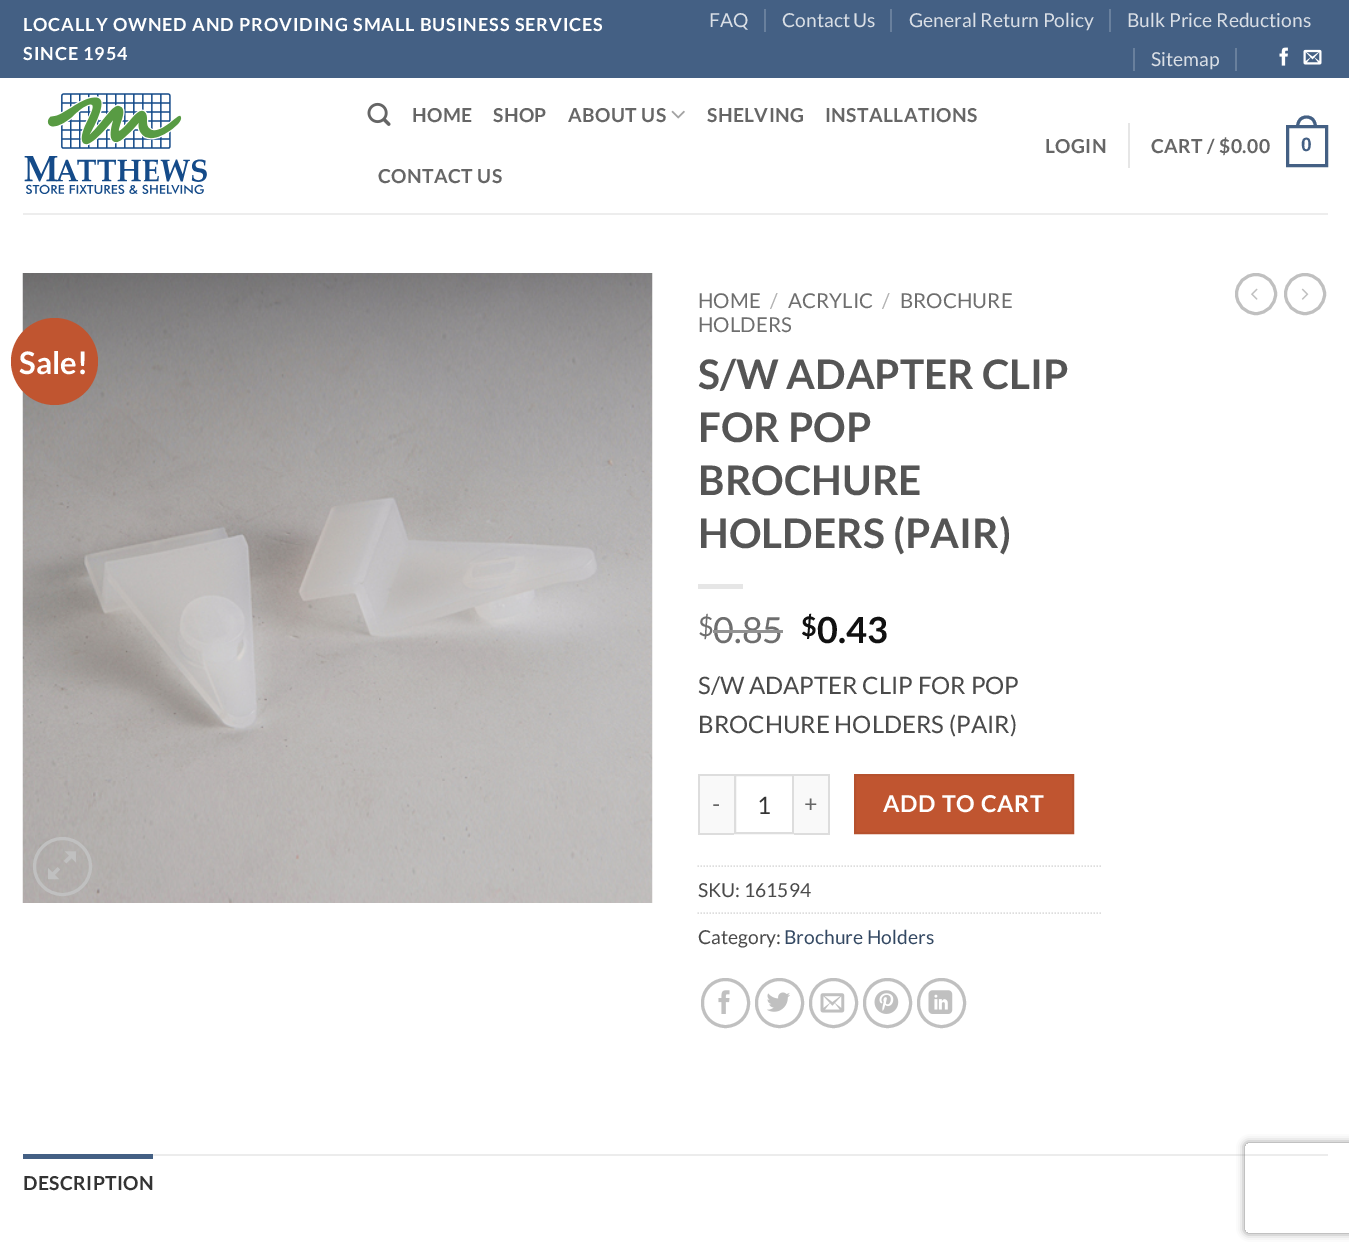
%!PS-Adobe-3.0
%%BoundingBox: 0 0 1349 1253
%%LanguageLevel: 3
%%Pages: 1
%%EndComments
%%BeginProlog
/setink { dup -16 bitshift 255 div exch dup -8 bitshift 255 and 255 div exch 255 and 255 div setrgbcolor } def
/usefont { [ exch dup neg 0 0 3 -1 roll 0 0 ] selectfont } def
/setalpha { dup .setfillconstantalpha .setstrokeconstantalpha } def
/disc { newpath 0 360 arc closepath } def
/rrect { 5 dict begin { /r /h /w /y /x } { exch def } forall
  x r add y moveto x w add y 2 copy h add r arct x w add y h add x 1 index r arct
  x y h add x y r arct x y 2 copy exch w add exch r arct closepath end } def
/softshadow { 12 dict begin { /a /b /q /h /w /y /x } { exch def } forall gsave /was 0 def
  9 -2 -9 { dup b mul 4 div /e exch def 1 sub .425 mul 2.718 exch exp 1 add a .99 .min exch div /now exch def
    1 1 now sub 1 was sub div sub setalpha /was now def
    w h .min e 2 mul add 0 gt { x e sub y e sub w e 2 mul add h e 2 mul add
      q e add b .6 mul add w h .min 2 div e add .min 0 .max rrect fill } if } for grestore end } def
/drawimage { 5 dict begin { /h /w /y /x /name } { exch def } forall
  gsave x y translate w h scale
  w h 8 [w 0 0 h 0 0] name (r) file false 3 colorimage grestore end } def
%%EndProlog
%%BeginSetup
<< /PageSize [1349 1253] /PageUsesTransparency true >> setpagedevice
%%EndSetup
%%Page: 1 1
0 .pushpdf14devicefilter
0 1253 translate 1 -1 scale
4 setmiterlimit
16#FFFFFF setink
0 0 1349 1253 rectfill
16#446084 setink
0 0 1349 78 rectfill
/Lato-Bold 18 usefont
16#FFFFFF setink
23 31 moveto 0.9 0 (LOCALLY OWNED AND PROVIDING SMALL BUSINESS SERVICES) ashow
23 60 moveto 0.9 0 (SINCE 1954) ashow
/Lato-Regular 19.25 usefont
16#DADFE6 setink
709 27 moveto (FAQ) show
16#69809D setink
764 9 2 23 rectfill
16#DADFE6 setink
782 27 moveto (Contact Us) show
16#69809D setink
890 9 2 23 rectfill
16#DADFE6 setink
909 27 moveto (General Return Policy) show
16#69809D setink
1109 9 2 23 rectfill
16#DADFE6 setink
1127 27 moveto (Bulk Price Reductions) show
16#69809D setink
1133 48 2 23 rectfill
16#DADFE6 setink
1151 66 moveto (Sitemap) show
16#69809D setink
1235 48 2 23 rectfill
(img1.raw) 1279 47 9 19 drawimage
(img2.raw) 1303 49 19 16 drawimage
(img3.raw) 24 93 183 101 drawimage
(img4.raw) 367 102 24 24 drawimage
/Lato-Bold 19.25 usefont
16#666666 setink
412 122 moveto 0.4 0 (HOME) ashow
493 122 moveto 0.4 0 (SHOP) ashow
568 122 moveto 0.4 0 (ABOUT US) ashow
(img5.raw) 671 110 14 9 drawimage
707 122 moveto 0.4 0 (SHELVING) ashow
825 122 moveto 0.4 0 (INSTALLATIONS) ashow
378 183 moveto 0.4 0 (CONTACT US) ashow
1045 153 moveto 0.4 0 (LOGIN) ashow
16#E6E6E6 setink
1128 123 2 45 rectfill
16#666666 setink
1151 153 moveto 0.4 0 (CART / $0.00) ashow
16#446084 setink
3 setlinewidth
1287.5 126.5 39 39 rectstroke
1306.5 115.5 moveto 1313.5 115.5 1317 121 1317 127.5 curveto 1296 127.5 lineto 1296 121 1299.5 115.5 1306.5 115.5 curveto closepath 1306.5 118.5 moveto 1312 118.5 1314 123 1314 127.5 curveto 1299 127.5 lineto 1299 123 1301 118.5 1306.5 118.5 curveto closepath eofill
/LiberationSans-Bold 19.25 usefont
1301 151 moveto 0.4 0 (0) ashow
16#EDEDED setink
23 213 1305 2 rectfill
(img6.raw) 22 273 631 630 drawimage
16#C05530 setink
54.5 361.5 43.5 disc fill
/Lato-Bold 31 usefont
16#FFFFFF setink
19 374 moveto (Sale!) show
16#C0C0C0 setink
62.5 866.5 28 disc stroke
(img7.raw) 48 851 28 29 drawimage
/Lato-Regular 20.5 usefont
16#6E6E6E setink
698 308 moveto (HOME) show
16#B2B2B2 setink
770 308 moveto (/) show
16#6E6E6E setink
788 308 moveto (ACRYLIC) show
16#B2B2B2 setink
882 308 moveto (/) show
16#6E6E6E setink
900 308 moveto (BROCHURE) show
698 332 moveto (HOLDERS) show
/Lato-Bold 40.75 usefont
16#555555 setink
[
    [(S/W ADAPTER CLIP) 698 389]
    [(FOR POP) 698 442]
    [(BROCHURE) 698 495]
    [(HOLDERS \(PAIR\)) 698 548]
] { aload pop moveto show } forall
16#E6E6E6 setink
698 584 45 5 rectfill
/Lato-Regular 27 usefont
16#6E6E6E setink
698 636 moveto ($) show
/Lato-Regular 36 usefont
713 643 moveto (0.85) show
16#929292 setink
713 630 70 3 rectfill
/Lato-Bold 27 usefont
16#111111 setink
801 636 moveto ($) show
/Lato-Bold 36 usefont
817 643 moveto (0.43) show
/Lato-Regular 24 usefont
16#4A4A4A setink
698 694 moveto (S/W ADAPTER CLIP FOR POP) show
698 733 moveto (BROCHURE HOLDERS \(PAIR\)) show
[
    [700 776 34 57 16#F9F9F9]
    [698 774 36 2 16#DDDDDD]
    [698 833 36 2 16#DDDDDD]
    [698 774 2 60 16#DDDDDD]
] { aload pop setink rectfill } forall
/Lato-Regular 23.25 usefont
16#666666 setink
712 812 moveto 0.75 0 (-) ashow
16#DDDDDD setink
2 setlinewidth
735 775 58 58 rectstroke
/Lato-Regular 24 usefont
16#333333 setink
757 814 moveto (1) show
[
    [794 776 34 57 16#F9F9F9]
    [794 774 36 2 16#DDDDDD]
    [828 774 2 60 16#DDDDDD]
    [794 833 36 2 16#DDDDDD]
] { aload pop setink rectfill } forall
/Lato-Regular 23.25 usefont
16#666666 setink
804 812 moveto 0.75 0 (+) ashow
16#C05530 setink
855 775 moveto 1073 775 lineto 1073 833 lineto 855 833 lineto closepath gsave fill grestore
16#B6512E setink
stroke
/Lato-Bold 23.25 usefont
16#FFFFFF setink
883 812 moveto 0.75 0 (ADD TO CART) ashow
16#DDDDDD setink
1.5 setlinewidth
[1.5 1.5] 0 setdash
697.5 866 moveto 1102.5 866 lineto stroke
/Lato-Regular 19.25 usefont
16#4A4A4A setink
698 897 moveto (SKU: 161594) show
16#DDDDDD setink
697.5 913 moveto 1102.5 913 lineto stroke
16#4A4A4A setink
698 944 moveto (Category:) show
16#334862 setink
784 944 moveto (Brochure Holders) show
16#C0C0C0 setink
3 setlinewidth
[] 0 setdash
702.5 979.5 46 47 23 rrect stroke
(img8.raw) 718 990 12 24 drawimage
756.5 979.5 46 47 23 rrect stroke
(img9.raw) 767 992 23 20 drawimage
810.5 979.5 46 47 23 rrect stroke
(img10.raw) 820 993 25 20 drawimage
864.5 979.5 46 47 23 rrect stroke
(img11.raw) 874 990 25 24 drawimage
918.5 979.5 46 47 23 rrect stroke
(img12.raw) 928 990 25 24 drawimage
1256 294 19.5 disc stroke
(img13.raw) 1251 288 7 12 drawimage
1305 294 19.5 disc stroke
(img14.raw) 1301 288 8 12 drawimage
16#ECECEC setink
153 1154 1175 2 rectfill
16#446084 setink
23 1154 130 5 rectfill
/Lato-Bold 19.25 usefont
16#333333 setink
23 1190 moveto 0.4 0 (DESCRIPTION) ashow
gsave
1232 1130 moveto 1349 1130 lineto 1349 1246 lineto 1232 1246 lineto closepath 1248 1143 moveto 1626 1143 lineto 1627.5 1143 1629 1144.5 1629 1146 curveto 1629 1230 lineto 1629 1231.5 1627.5 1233 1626 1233 curveto 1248 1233 lineto 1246.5 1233 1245 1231.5 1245 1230 curveto 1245 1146 lineto 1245 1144.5 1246.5 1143 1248 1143 curveto closepath eoclip newpath
16#808080 setink
1245 1143 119 90 3 4 1 softshadow
grestore
.poppdf14devicefilter showpage
%%EOF
